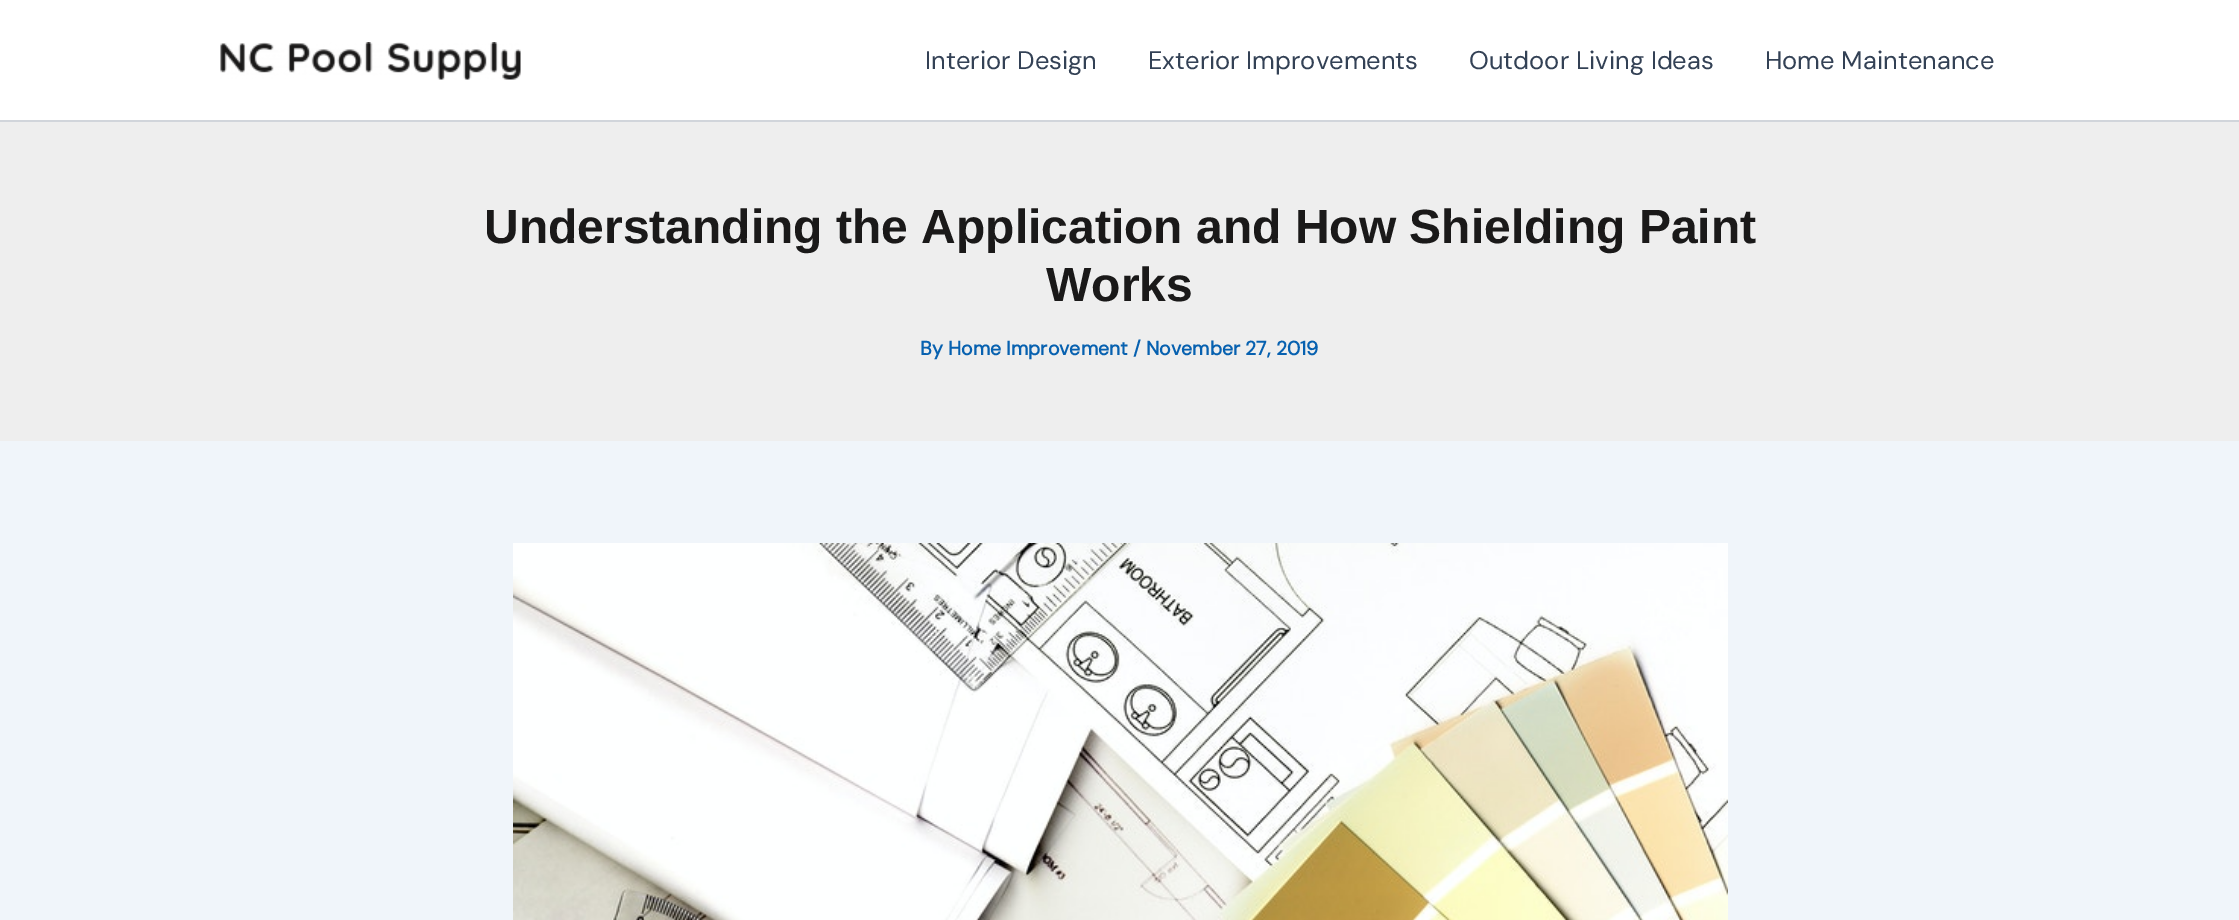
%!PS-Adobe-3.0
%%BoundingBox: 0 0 2239 920
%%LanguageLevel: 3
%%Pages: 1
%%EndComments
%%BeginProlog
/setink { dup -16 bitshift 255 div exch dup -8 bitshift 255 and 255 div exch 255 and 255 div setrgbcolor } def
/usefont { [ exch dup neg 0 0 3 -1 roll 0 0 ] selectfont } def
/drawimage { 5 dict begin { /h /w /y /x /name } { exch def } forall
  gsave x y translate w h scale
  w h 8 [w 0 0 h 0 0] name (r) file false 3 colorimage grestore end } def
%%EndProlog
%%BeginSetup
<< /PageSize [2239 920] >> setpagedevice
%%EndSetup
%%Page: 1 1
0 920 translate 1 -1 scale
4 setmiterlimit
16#F0F5FA setink
0 0 2239 920 rectfill
16#FFFFFF setink
0 0 2239 120 rectfill
16#D1D5DB setink
0 120 2239 2 rectfill
(img1.raw) 220 42 301 38 drawimage
/DMSans-Regular 25.5 usefont
16#334155 setink
[
    [(Interior Design) 925 69]
    [(Exterior Improvements) 1148 69]
    [(Outdoor Living Ideas) 1469 69]
    [(Home Maintenance) 1765 69]
] { aload pop moveto show } forall
16#EEEEEE setink
0 122 2239 319 rectfill
/LiberationSans-Bold 48 usefont
16#1A1919 setink
484 243 moveto (Understanding the Application and How Shielding Paint) show
1046 301 moveto (Works) show
/DMSans-Bold 19.5 usefont
16#0761B0 setink
920 355 moveto (By Home Improvement / November 27, 2019) show
(img2.raw) 513 543 1215 377 drawimage
showpage
%%EOF
